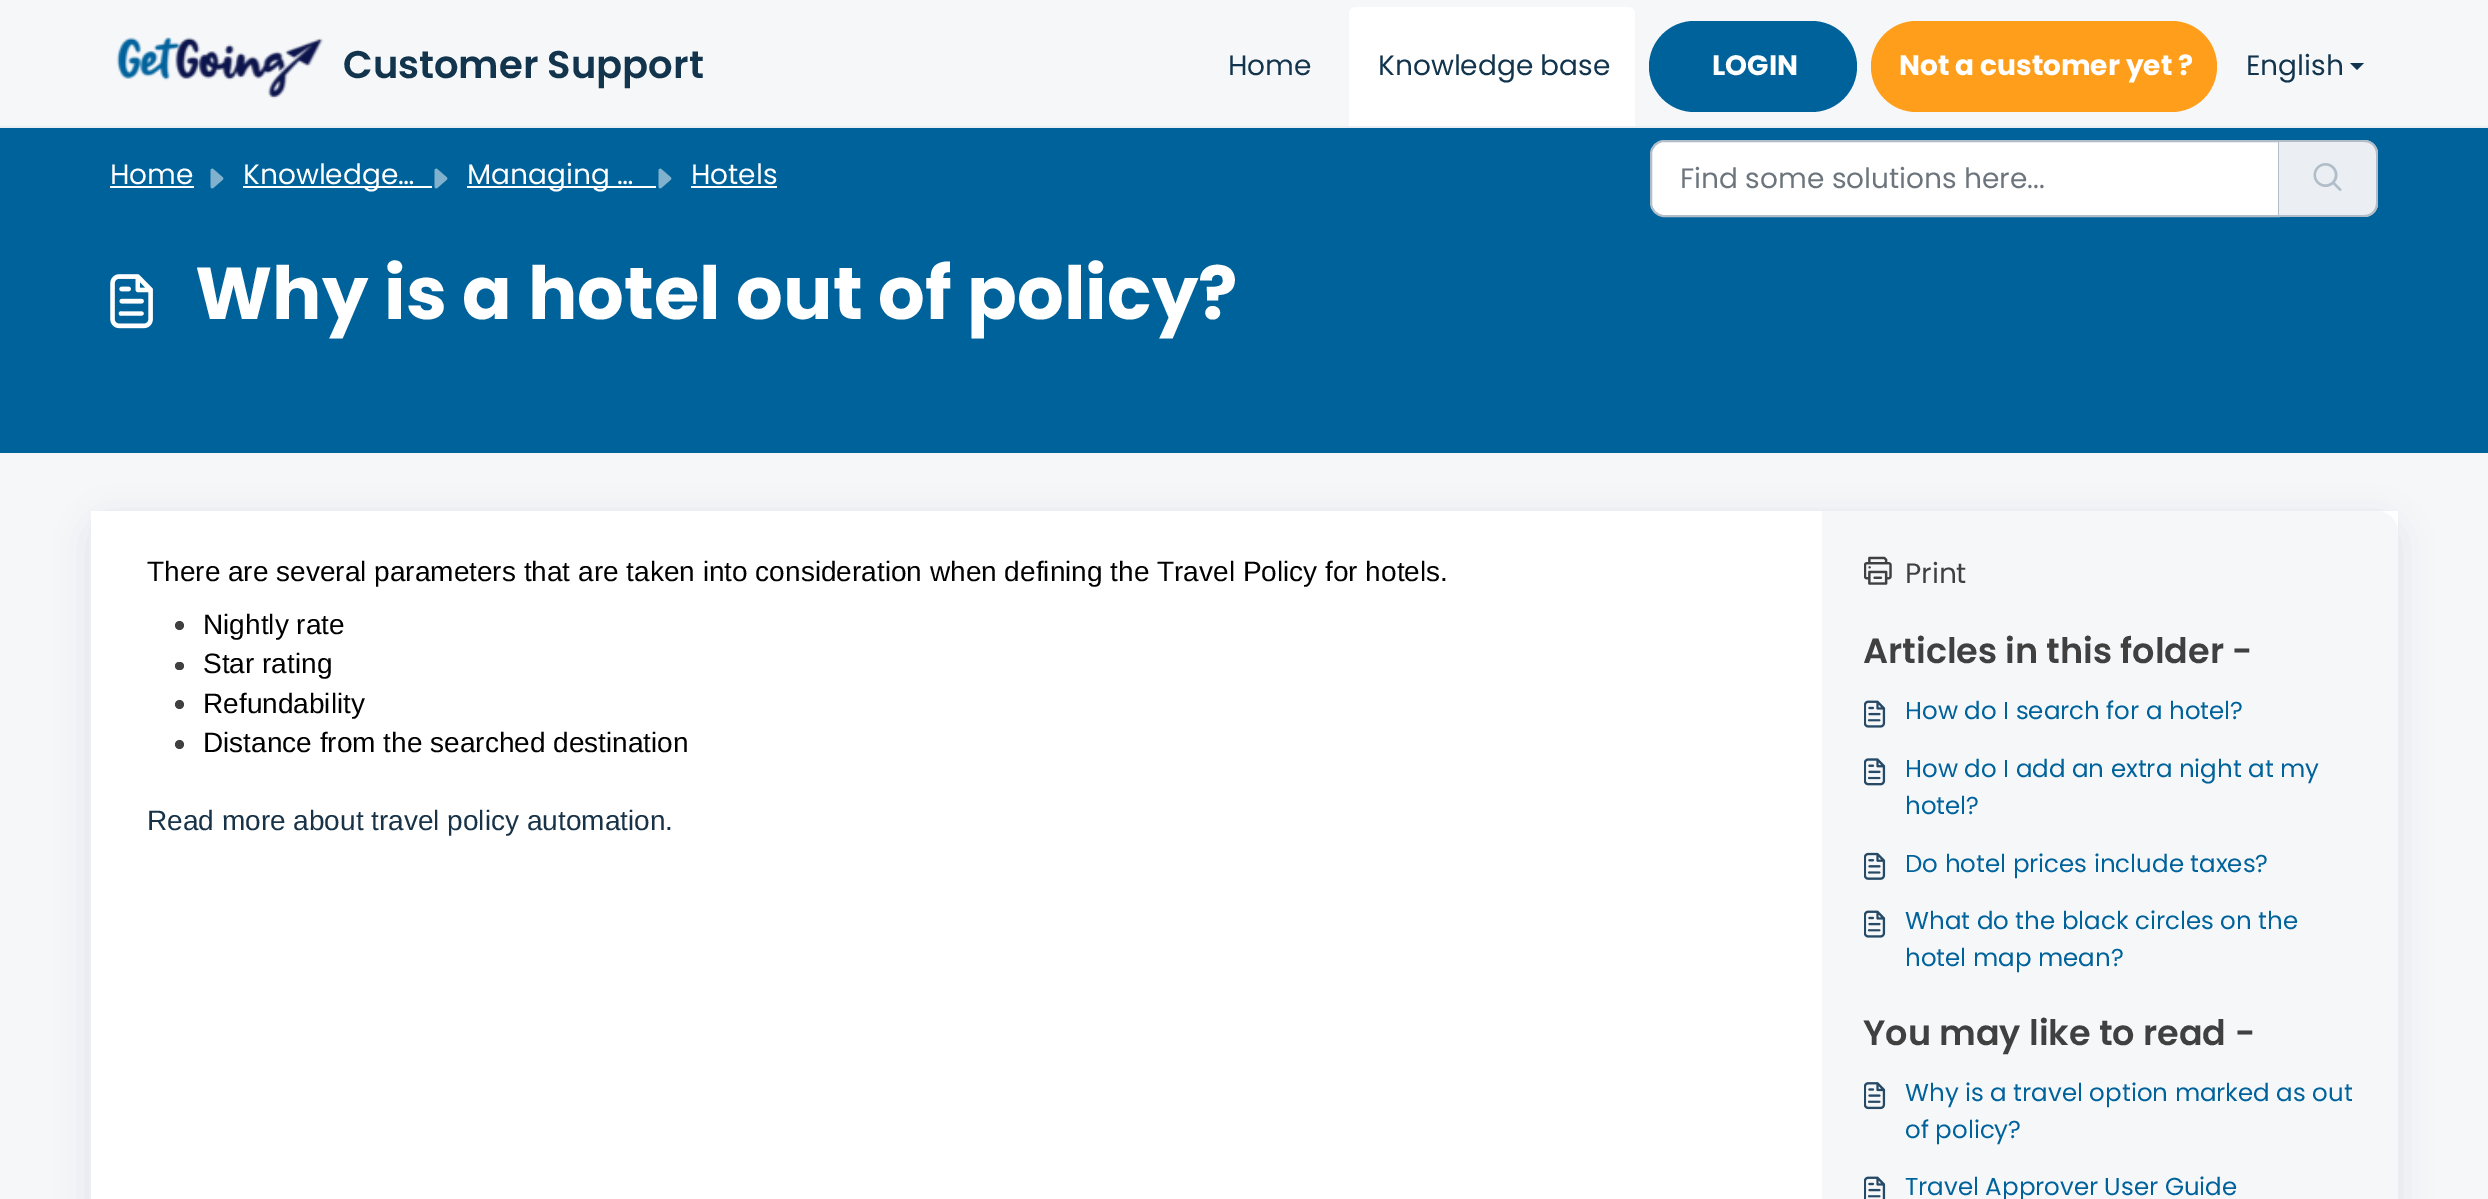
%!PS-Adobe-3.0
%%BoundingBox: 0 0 2488 1199
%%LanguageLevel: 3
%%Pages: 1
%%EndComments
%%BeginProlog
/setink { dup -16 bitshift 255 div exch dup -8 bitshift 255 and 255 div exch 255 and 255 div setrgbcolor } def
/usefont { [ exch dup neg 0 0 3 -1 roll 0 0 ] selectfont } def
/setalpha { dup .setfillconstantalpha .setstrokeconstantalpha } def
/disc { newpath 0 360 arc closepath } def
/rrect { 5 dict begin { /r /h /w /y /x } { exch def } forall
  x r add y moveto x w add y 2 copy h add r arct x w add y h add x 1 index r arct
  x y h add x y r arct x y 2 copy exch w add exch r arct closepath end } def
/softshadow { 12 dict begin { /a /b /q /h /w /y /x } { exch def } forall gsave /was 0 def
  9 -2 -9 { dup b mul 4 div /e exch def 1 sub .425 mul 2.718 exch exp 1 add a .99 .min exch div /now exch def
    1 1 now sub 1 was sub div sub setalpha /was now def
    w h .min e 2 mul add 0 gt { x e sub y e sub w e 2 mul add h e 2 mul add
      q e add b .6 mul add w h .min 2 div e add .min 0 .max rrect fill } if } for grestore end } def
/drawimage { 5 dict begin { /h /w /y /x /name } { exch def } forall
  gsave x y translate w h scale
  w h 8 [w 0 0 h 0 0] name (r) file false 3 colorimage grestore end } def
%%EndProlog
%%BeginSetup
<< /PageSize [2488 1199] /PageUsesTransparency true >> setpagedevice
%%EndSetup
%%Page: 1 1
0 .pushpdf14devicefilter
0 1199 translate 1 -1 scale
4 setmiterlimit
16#F5F7F9 setink
0 0 2488 1199 rectfill
16#EBEFF3 setink
0 126 2488 2 rectfill
(img1.raw) 116 37 208 62 drawimage
/Poppins-SemiBold 38.5 usefont
16#12344D setink
343 78 moveto (Customer Support) show
/Poppins-Regular 28 usefont
1228 75 moveto (Home) show
16#FFFFFF setink
1356 7 moveto 1628 7 lineto 1632 7 1635 10 1635 14 curveto 1635 126 lineto 1349 126 lineto 1349 14 lineto 1349 10 1352 7 1356 7 curveto closepath fill
16#12344D setink
1378 75 moveto (Knowledge base) show
16#00629B setink
1649 21 208 91 45.5 rrect fill
/Poppins-Bold 28 usefont
16#FFFFFF setink
1712 75 moveto (LOGIN) show
16#FF9E1B setink
1871 21 346 91 45.5 rrect fill
16#FFFFFF setink
1899 75 moveto (Not a customer yet ?) show
/Poppins-Regular 28 usefont
16#12344D setink
2246 75 moveto (English) show
2350 63 moveto 2364 63 lineto 2357 70 lineto closepath fill
16#00629B setink
0 128 2488 325 rectfill
16#FFFFFF setink
110 184 moveto (Home) show
110 186 84 2 rectfill
(img2.raw) 210 168 14 21 drawimage
243 186 189 2 rectfill
243 184 moveto (Knowledge…) show
(img2.raw) 434 168 14 21 drawimage
467 186 189 2 rectfill
467 184 moveto (Managing …) show
(img2.raw) 658 168 14 21 drawimage
691 184 moveto (Hotels) show
691 186 86 2 rectfill
1664 141 moveto 2279 141 lineto 2279 216 lineto 1664 216 lineto 1657 216 1651 210 1651 203 curveto 1651 154 lineto 1651 147 1657 141 1664 141 curveto closepath gsave fill grestore
16#B1BDC8 setink
2 setlinewidth
stroke
16#6C757D setink
1680 188 moveto (Find some solutions here...) show
16#EBEFF3 setink
2279 140 moveto 2364 140 lineto 2371.5 140 2378 146.5 2378 154 curveto 2378 203 lineto 2378 210.5 2371.5 217 2364 217 curveto 2279 217 lineto closepath fill
16#B1BDC8 setink
2278 140 moveto 2364 140 lineto 2372 140 2378 146 2378 154 curveto 2378 203 lineto 2378 211 2372 217 2364 217 curveto 2278 217 lineto closepath 2278 142 moveto 2364 142 lineto 2371 142 2376 147 2376 154 curveto 2376 203 lineto 2376 210 2371 215 2364 215 curveto 2278 215 lineto closepath eofill
(img3.raw) 2313 163 29 28 drawimage
(img4.raw) 110 274 43 55 drawimage
/Poppins-Bold 73.5 usefont
16#FFFFFF setink
195 319 moveto (Why is a hotel out of policy?) show
16#27313A setink
89 520 2310 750 21 16.5 0.1 softshadow
16#EBEFF3 setink
90 510 2308 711 20 rrect stroke
16#FFFFFF setink
91 511 2307 688 rectfill
/LiberationSans-Regular 28 usefont
16#000000 setink
147 581 moveto (There are several parameters that are taken into consideration when defining the Travel Policy for hotels.) show
16#404040 setink
179.5 625.5 4.5 disc fill
16#000000 setink
203 634 moveto (Nightly rate) show
16#404040 setink
175 662 9 8 4 rrect fill
16#000000 setink
203 673 moveto (Star rating) show
16#404040 setink
179.5 704.5 4.5 disc fill
16#000000 setink
203 713 moveto (Refundability) show
16#404040 setink
179.5 744.5 4.5 disc fill
16#000000 setink
203 752 moveto (Distance from the searched destination) show
16#183247 setink
147 830 moveto (Read more about travel policy automation.) show
16#F5F7F9 setink
1822 511 moveto 2377 511 lineto 2388.5 511 2398 520.5 2398 532 curveto 2398 1199 lineto 2398 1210.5 2388.5 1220 2377 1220 curveto 1822 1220 lineto closepath fill
(img5.raw) 1864 556 28 29 drawimage
/Poppins-Regular 28 usefont
16#404040 setink
1905 583 moveto (Print) show
/Poppins-SemiBold 35 usefont
1863 663 moveto (Articles in this folder -) show
(img6.raw) 1864 700 22 28 drawimage
/Poppins-Regular 24.5 usefont
16#00629B setink
1905 719 moveto (How do I search for a hotel?) show
(img7.raw) 1864 758 22 28 drawimage
1905 777 moveto (How do I add an extra night at my) show
1905 814 moveto (hotel?) show
(img8.raw) 1864 852 22 28 drawimage
1905 872 moveto (Do hotel prices include taxes?) show
(img6.raw) 1864 910 22 28 drawimage
1905 929 moveto (What do the black circles on the) show
1905 966 moveto (hotel map mean?) show
/Poppins-SemiBold 35 usefont
16#404040 setink
1863 1045 moveto (You may like to read -) show
(img9.raw) 1864 1082 22 28 drawimage
/Poppins-Regular 24.5 usefont
16#00629B setink
1905 1101 moveto (Why is a travel option marked as out) show
1905 1138 moveto (of policy?) show
(img10.raw) 1864 1176 22 23 drawimage
1905 1195 moveto (Travel Approver User Guide) show
.poppdf14devicefilter showpage
%%EOF
